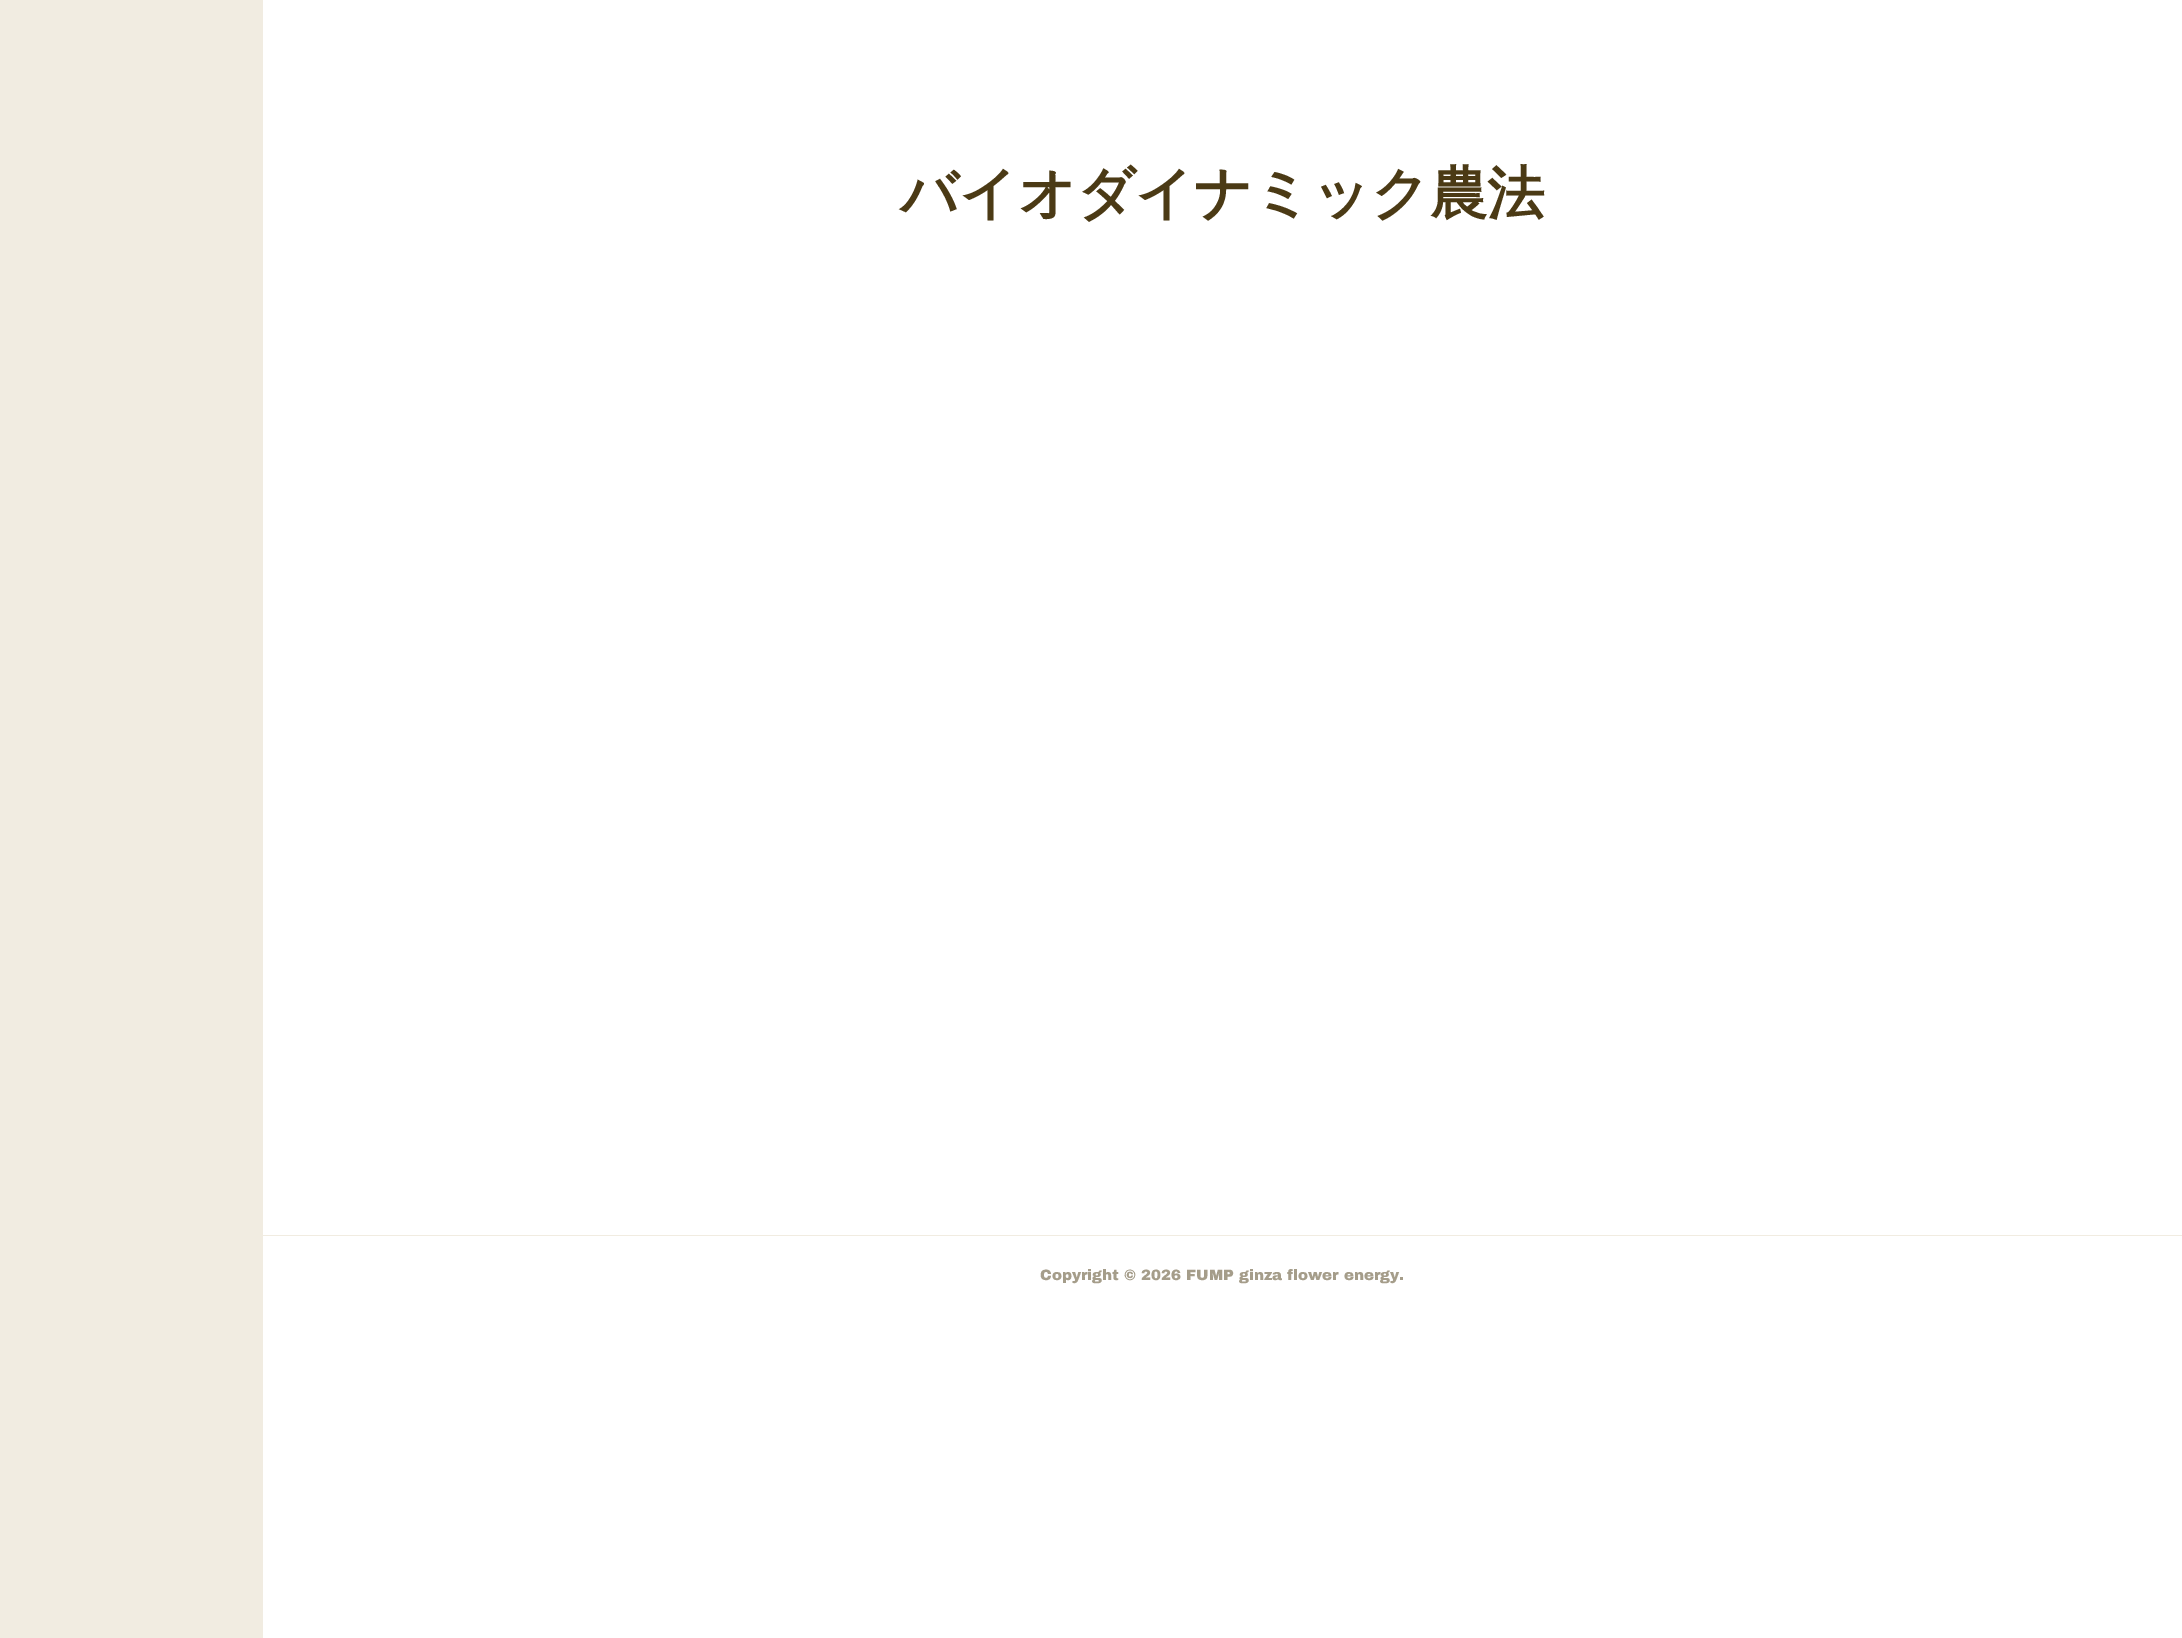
%!PS-Adobe-3.0
%%BoundingBox: 0 0 2182 1638
%%LanguageLevel: 3
%%Pages: 1
%%EndComments
%%BeginProlog
/setink { dup -16 bitshift 255 div exch dup -8 bitshift 255 and 255 div exch 255 and 255 div setrgbcolor } def
/usefont { [ exch dup neg 0 0 3 -1 roll 0 0 ] selectfont } def
%%EndProlog
%%BeginSetup
<< /PageSize [2182 1638] >> setpagedevice
%%EndSetup
%%Page: 1 1
0 1638 translate 1 -1 scale
4 setmiterlimit
16#FFFFFF setink
0 0 2182 1638 rectfill
16#F1ECE1 setink
0 0 263 1638 rectfill
/WenQuanYiZenHei-Bold 57.5 usefont
16#4B3A15 setink
900 213 moveto (バイオダイナミック農法) show
16#F1ECE1 setink
263 1235 1919 1 rectfill
/ArchivoBlack-Black 15 usefont
16#A59D8A setink
1040 1280 moveto (Copyright © 2026 FUMP ginza flower energy.) show
showpage
%%EOF
